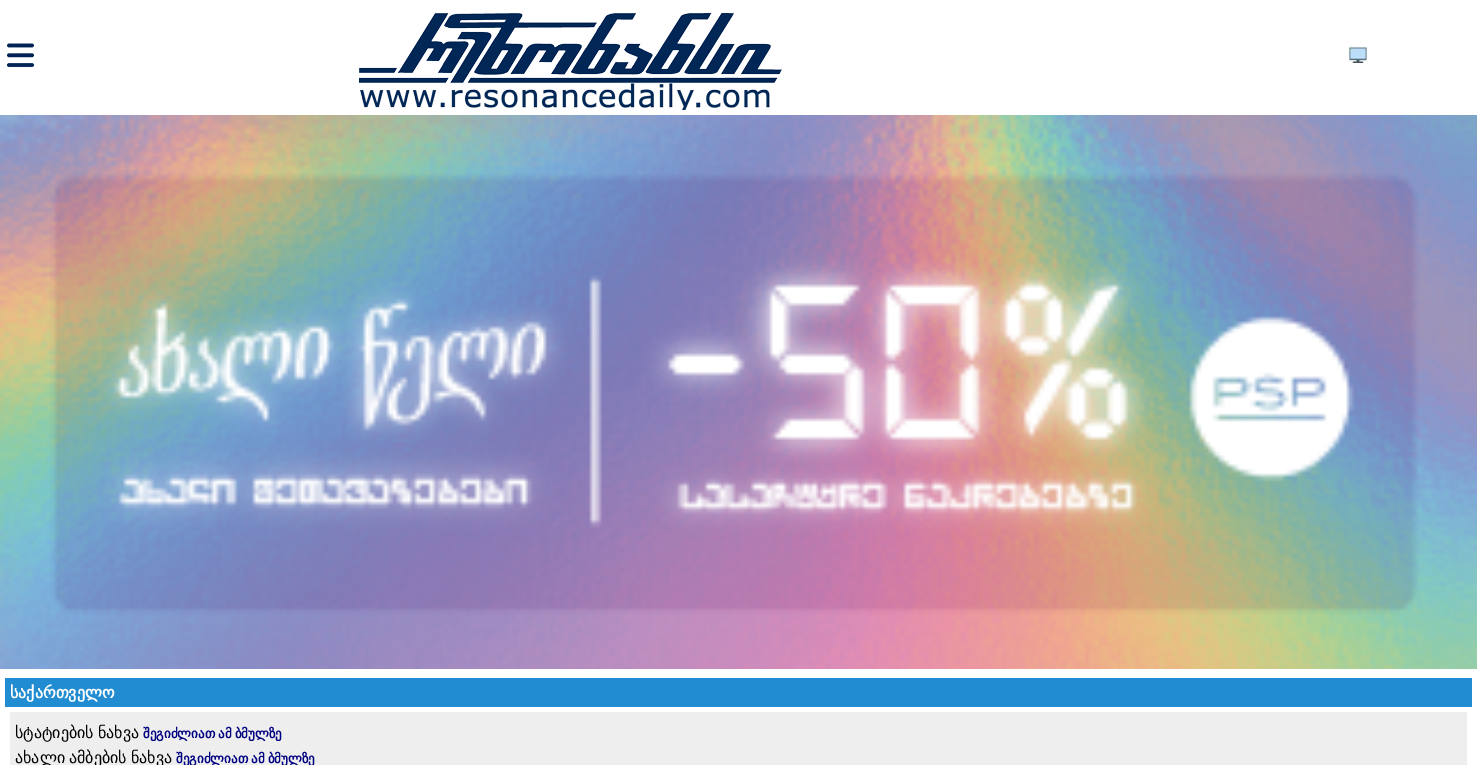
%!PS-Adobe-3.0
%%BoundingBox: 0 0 1477 765
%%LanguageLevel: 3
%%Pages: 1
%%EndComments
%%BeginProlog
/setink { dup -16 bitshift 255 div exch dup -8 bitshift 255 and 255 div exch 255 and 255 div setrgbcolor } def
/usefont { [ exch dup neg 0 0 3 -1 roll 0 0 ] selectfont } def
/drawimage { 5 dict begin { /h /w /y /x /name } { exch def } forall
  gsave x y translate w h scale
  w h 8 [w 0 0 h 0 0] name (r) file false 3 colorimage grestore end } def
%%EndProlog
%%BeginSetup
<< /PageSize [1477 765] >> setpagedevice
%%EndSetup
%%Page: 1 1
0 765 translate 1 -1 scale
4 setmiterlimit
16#FFFFFF setink
0 0 1477 765 rectfill
(img1.raw) 7 43 28 25 drawimage
(img2.raw) 358 12 424 98 drawimage
(img3.raw) 1348 46 20 18 drawimage
(img4.raw) 0 115 1477 554 drawimage
16#218CD2 setink
5 678 1467 29 rectfill
/DejaVuSans-Bold 16 usefont
16#FFFFFF setink
10 698 moveto (საქართველო) show
16#EEEEEE setink
10 712 1457 53 rectfill
/DejaVuSans-Regular 16 usefont
16#000000 setink
15 738 moveto -1 0 32 (სტატიების ნახვა) widthshow
/DejaVuSans-Bold 13 usefont
16#000080 setink
143 738 moveto -1 0 32 (შეგიძლიათ ამ ბმულზე) widthshow
/DejaVuSans-Regular 16 usefont
16#000000 setink
15 763 moveto -1 0 32 (ახალი ამბების ნახვა) widthshow
/DejaVuSans-Bold 13 usefont
16#000080 setink
176 763 moveto -1 0 32 (შეგიძლიათ ამ ბმულზე) widthshow
showpage
%%EOF
